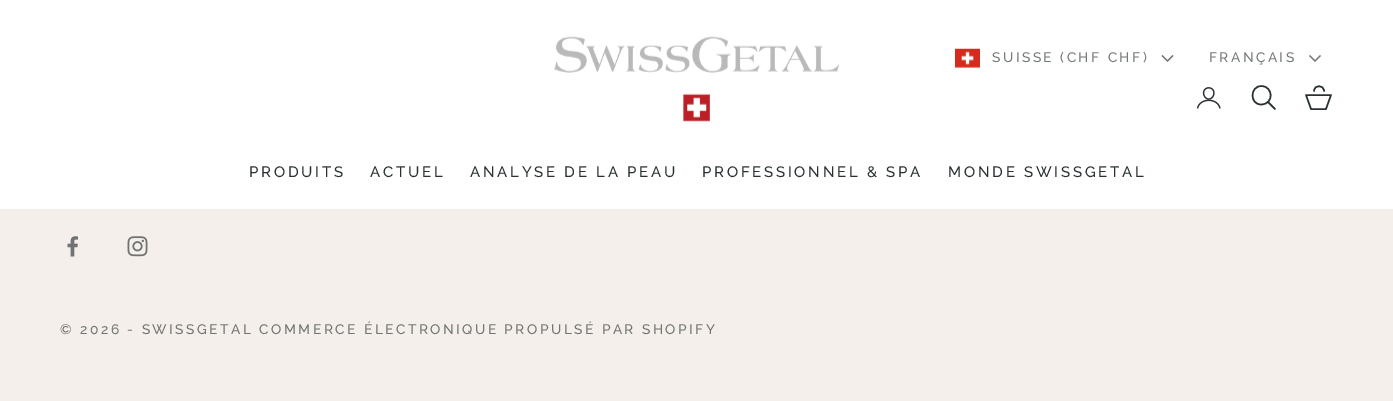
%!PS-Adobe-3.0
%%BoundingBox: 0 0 1393 401
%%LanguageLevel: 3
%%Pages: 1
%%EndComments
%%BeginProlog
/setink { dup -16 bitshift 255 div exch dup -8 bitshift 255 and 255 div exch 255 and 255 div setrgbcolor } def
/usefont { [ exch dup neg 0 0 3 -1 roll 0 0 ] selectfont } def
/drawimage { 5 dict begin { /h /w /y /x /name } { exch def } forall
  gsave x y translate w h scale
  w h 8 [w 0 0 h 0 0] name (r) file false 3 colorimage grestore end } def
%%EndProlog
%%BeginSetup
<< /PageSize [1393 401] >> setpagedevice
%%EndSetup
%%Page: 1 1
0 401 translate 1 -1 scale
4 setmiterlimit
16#F5EFEB setink
0 0 1393 401 rectfill
16#FFFFFF setink
0 0 1393 209 rectfill
(img1.raw) 554 36 285 86 drawimage
(img2.raw) 955 48 25 20 drawimage
/Raleway-Medium 13.75 usefont
16#74797A setink
992 62 moveto 2.48 0 (SUISSE \(CHF CHF\)) ashow
1.2 setlinewidth
2 setlinecap
1162.5 56 moveto 1167.5 61 lineto 1172.5 56 lineto stroke
1209 62 moveto 2.48 0 (FRANÇAIS) ashow
1310 56 moveto 1315 61 lineto 1320 56 lineto stroke
(img3.raw) 1196 87 25 22 drawimage
16#293133 setink
1.5 setlinewidth
0 setlinecap
1261.5 86 moveto 1249.5 86 1249.5 105 1261.5 104.5 curveto 1274 104 1273.5 86.5 1261.5 86 curveto closepath stroke
1 setlinecap
1268.5 102.5 moveto 1275 109 lineto stroke
1 setlinejoin
1306 95 moveto 1331 95 lineto 1326 109 lineto 1311 109 lineto closepath 1324 91 moveto 1324 84.5 1314 84.5 1314 91 curveto stroke
/Raleway-Medium 15 usefont
249 177 moveto 2.75 0 (PRODUITS) ashow
370 177 moveto 2.75 0 (ACTUEL) ashow
470 177 moveto 2.75 0 (ANALYSE DE LA PEAU) ashow
702 177 moveto 2.75 0 (PROFESSIONNEL & SPA) ashow
948 177 moveto 2.75 0 (MONDE SWISSGETAL) ashow
(img4.raw) 67 236 11 21 drawimage
(img5.raw) 127 236 21 21 drawimage
/Raleway-Medium 13.75 usefont
16#707473 setink
60 334 moveto 2.48 0 (© 2026 - SWISSGETAL COMMERCE ÉLECTRONIQUE PROPULSÉ PAR SHOPIFY) ashow
showpage
%%EOF
